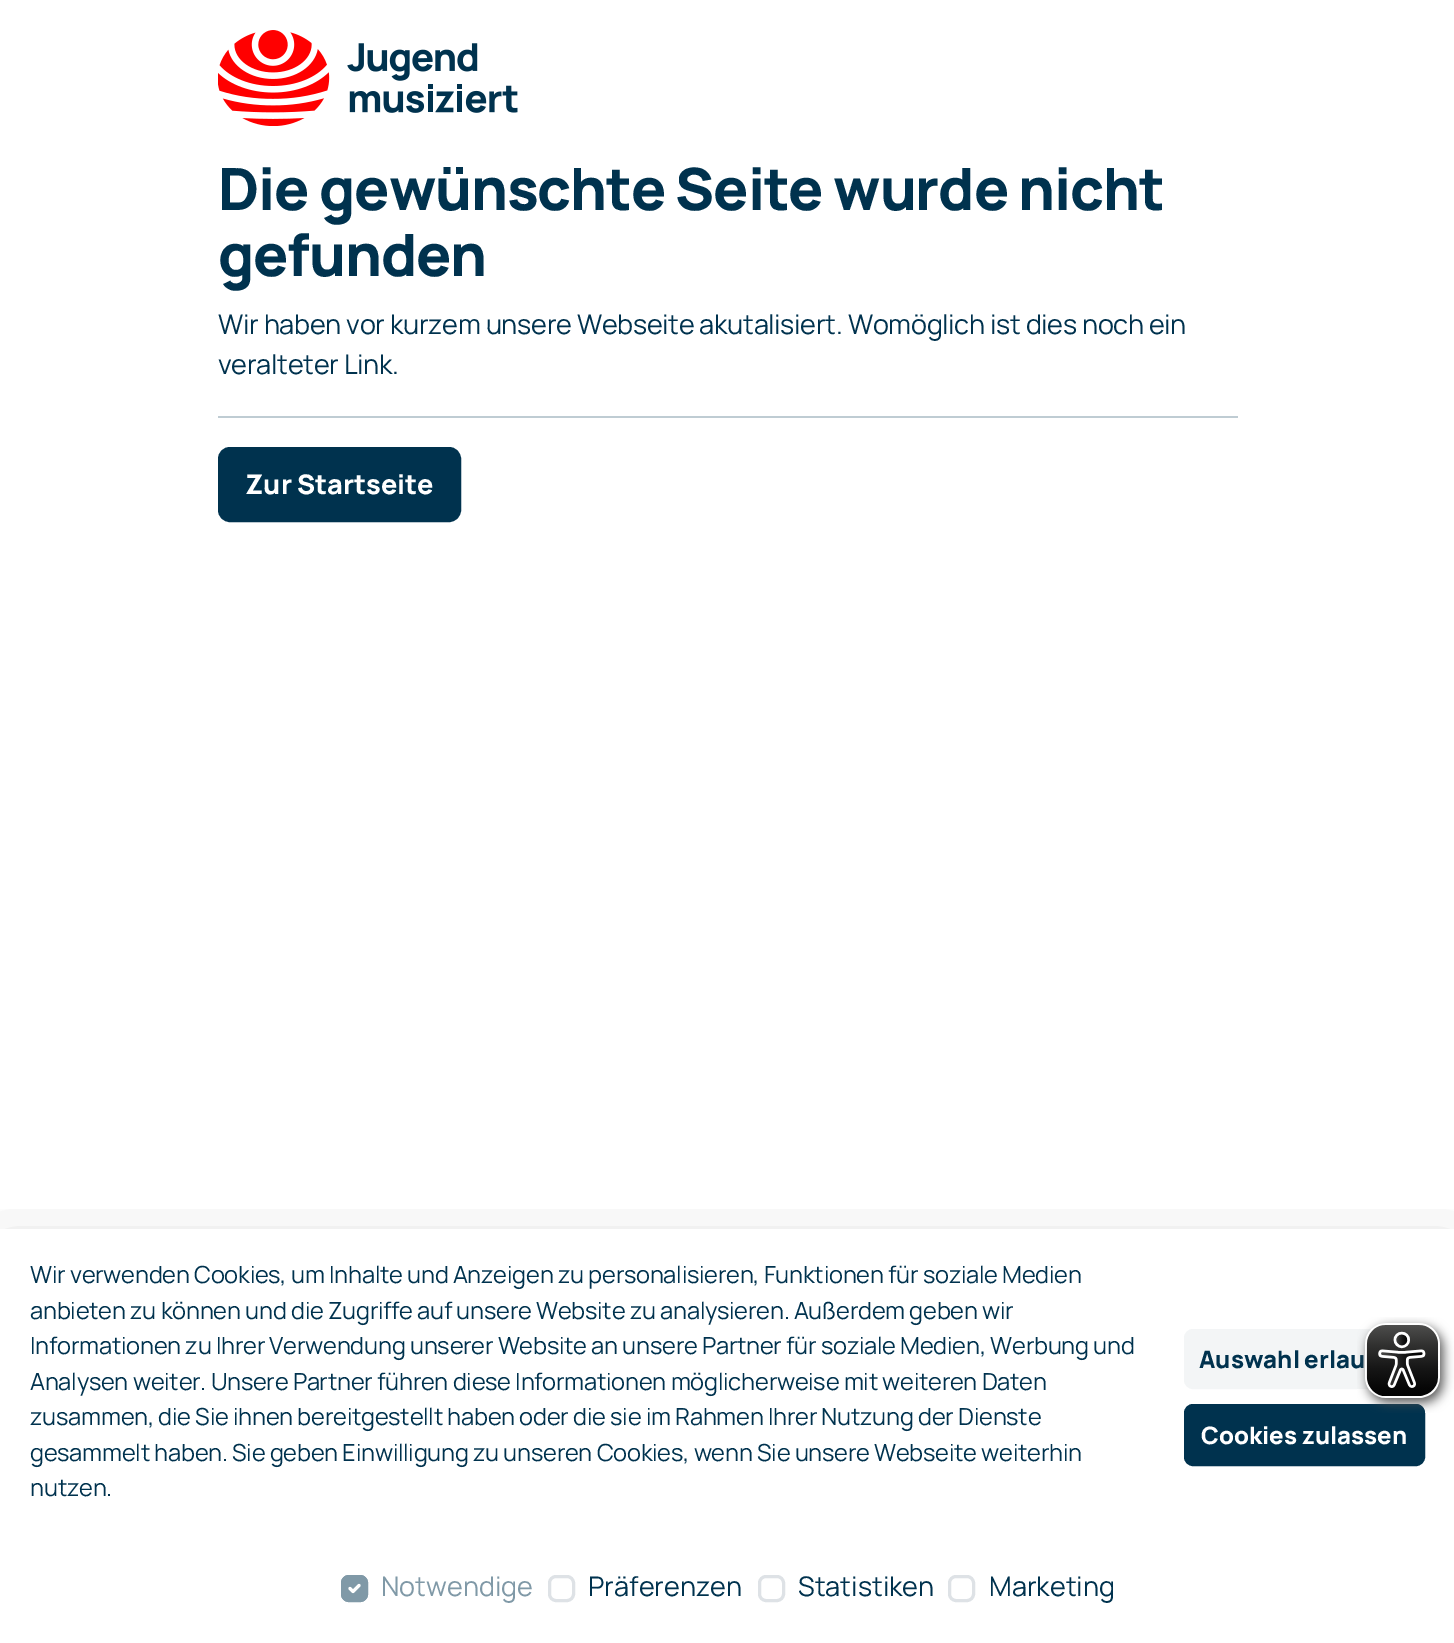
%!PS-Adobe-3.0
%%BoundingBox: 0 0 1454 1643
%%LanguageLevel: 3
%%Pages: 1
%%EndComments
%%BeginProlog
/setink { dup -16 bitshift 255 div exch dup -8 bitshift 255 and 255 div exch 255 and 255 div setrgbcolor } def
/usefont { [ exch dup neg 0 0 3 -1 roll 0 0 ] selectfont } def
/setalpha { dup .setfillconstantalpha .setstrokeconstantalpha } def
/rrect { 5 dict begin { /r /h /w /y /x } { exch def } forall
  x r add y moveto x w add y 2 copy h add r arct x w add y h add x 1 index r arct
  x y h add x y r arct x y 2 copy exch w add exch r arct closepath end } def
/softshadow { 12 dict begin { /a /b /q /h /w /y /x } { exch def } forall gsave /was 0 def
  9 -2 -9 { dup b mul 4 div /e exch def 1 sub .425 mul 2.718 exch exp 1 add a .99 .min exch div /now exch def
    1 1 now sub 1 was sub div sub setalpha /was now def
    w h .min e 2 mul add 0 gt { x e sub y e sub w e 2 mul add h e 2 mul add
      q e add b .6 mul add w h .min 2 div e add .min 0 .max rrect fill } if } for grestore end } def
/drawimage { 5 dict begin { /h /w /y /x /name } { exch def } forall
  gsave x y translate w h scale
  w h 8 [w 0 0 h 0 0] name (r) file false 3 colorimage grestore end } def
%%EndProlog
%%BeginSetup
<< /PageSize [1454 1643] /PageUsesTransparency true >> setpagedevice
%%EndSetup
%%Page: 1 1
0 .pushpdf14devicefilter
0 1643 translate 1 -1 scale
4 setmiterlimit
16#FFFFFF setink
0 0 1454 1643 rectfill
(img1.raw) 218 30 300 96 drawimage
/Manrope-ExtraBold 58.25 usefont
16#00324E setink
218 210 moveto -1.15 0 (Die gewünschte Seite wurde nicht) ashow
218 276 moveto -1.15 0 (gefunden) ashow
/Manrope-Regular 27 usefont
218 334 moveto -0.27 0 (Wir haben vor kurzem unsere Webseite akutalisiert. Womöglich ist dies noch ein) ashow
218 374 moveto -0.27 0 (veralteter Link.) ashow
16#BFCCD3 setink
218 416 1020 2 rectfill
16#00324E setink
219.5 448.5 240 72 10.5 rrect gsave fill grestore
3 setlinewidth
stroke
/Manrope-ExtraBold 27 usefont
16#FFFFFF setink
245 494 moveto (Zur Startseite) show
gsave
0 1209 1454 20 rectclip
16#000000 setink
0 1253 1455 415 0 36 0.18 softshadow
grestore
/Manrope-Regular 23.6 usefont
16#00324E setink
30 1283 moveto -0.25 0 (Wir verwenden Cookies, um Inhalte und Anzeigen zu personalisieren, Funktionen für soziale Medien) ashow
30 1319 moveto -0.25 0 (anbieten zu können und die Zugriffe auf unsere Website zu analysieren. Außerdem geben wir) ashow
30 1354 moveto -0.25 0 (Informationen zu Ihrer Verwendung unserer Website an unsere Partner für soziale Medien, Werbung und) ashow
30 1390 moveto -0.25 0 (Analysen weiter. Unsere Partner führen diese Informationen möglicherweise mit weiteren Daten) ashow
30 1425 moveto -0.25 0 (zusammen, die Sie ihnen bereitgestellt haben oder die sie im Rahmen Ihrer Nutzung der Dienste) ashow
30 1461 moveto -0.25 0 (gesammelt haben. Sie geben Einwilligung zu unseren Cookies, wenn Sie unsere Webseite weiterhin) ashow
30 1496 moveto -0.25 0 (nutzen.) ashow
16#F3F5F6 setink
1185.5 1330.5 238 57 7.5 rrect gsave fill grestore
stroke
/Manrope-ExtraBold 24 usefont
16#00324E setink
1199 1368 moveto (Auswahl erlau) show
1185.5 1405.5 238 59 7.5 rrect gsave fill grestore
stroke
16#FFFFFF setink
1201 1444 moveto (Cookies zulassen) show
16#8099A7 setink
341 1575 27 27 8 rrect fill
16#FFFFFF setink
3.1 setlinewidth
1 setlinecap
1 setlinejoin
350 1588.5 moveto 353 1591.5 lineto 359 1585.5 lineto stroke
16#8099A7 setink
3 setlinewidth
0 setlinecap
0 setlinejoin
342.5 1576.5 24 24 6.5 rrect stroke
/Manrope-Regular 27 usefont
381 1596 moveto (Notwendige) show
16#DEE2E6 setink
549.5 1576.5 24 24 6.5 rrect stroke
16#00324E setink
588 1596 moveto (Präferenzen) show
16#DEE2E6 setink
759.5 1576.5 24 24 6.5 rrect stroke
16#00324E setink
798 1596 moveto (Statistiken) show
16#DEE2E6 setink
949.5 1576.5 24 24 6.5 rrect stroke
16#00324E setink
989 1596 moveto (Marketing) show
(img2.raw) 1357 1317 97 96 drawimage
.poppdf14devicefilter showpage
%%EOF
